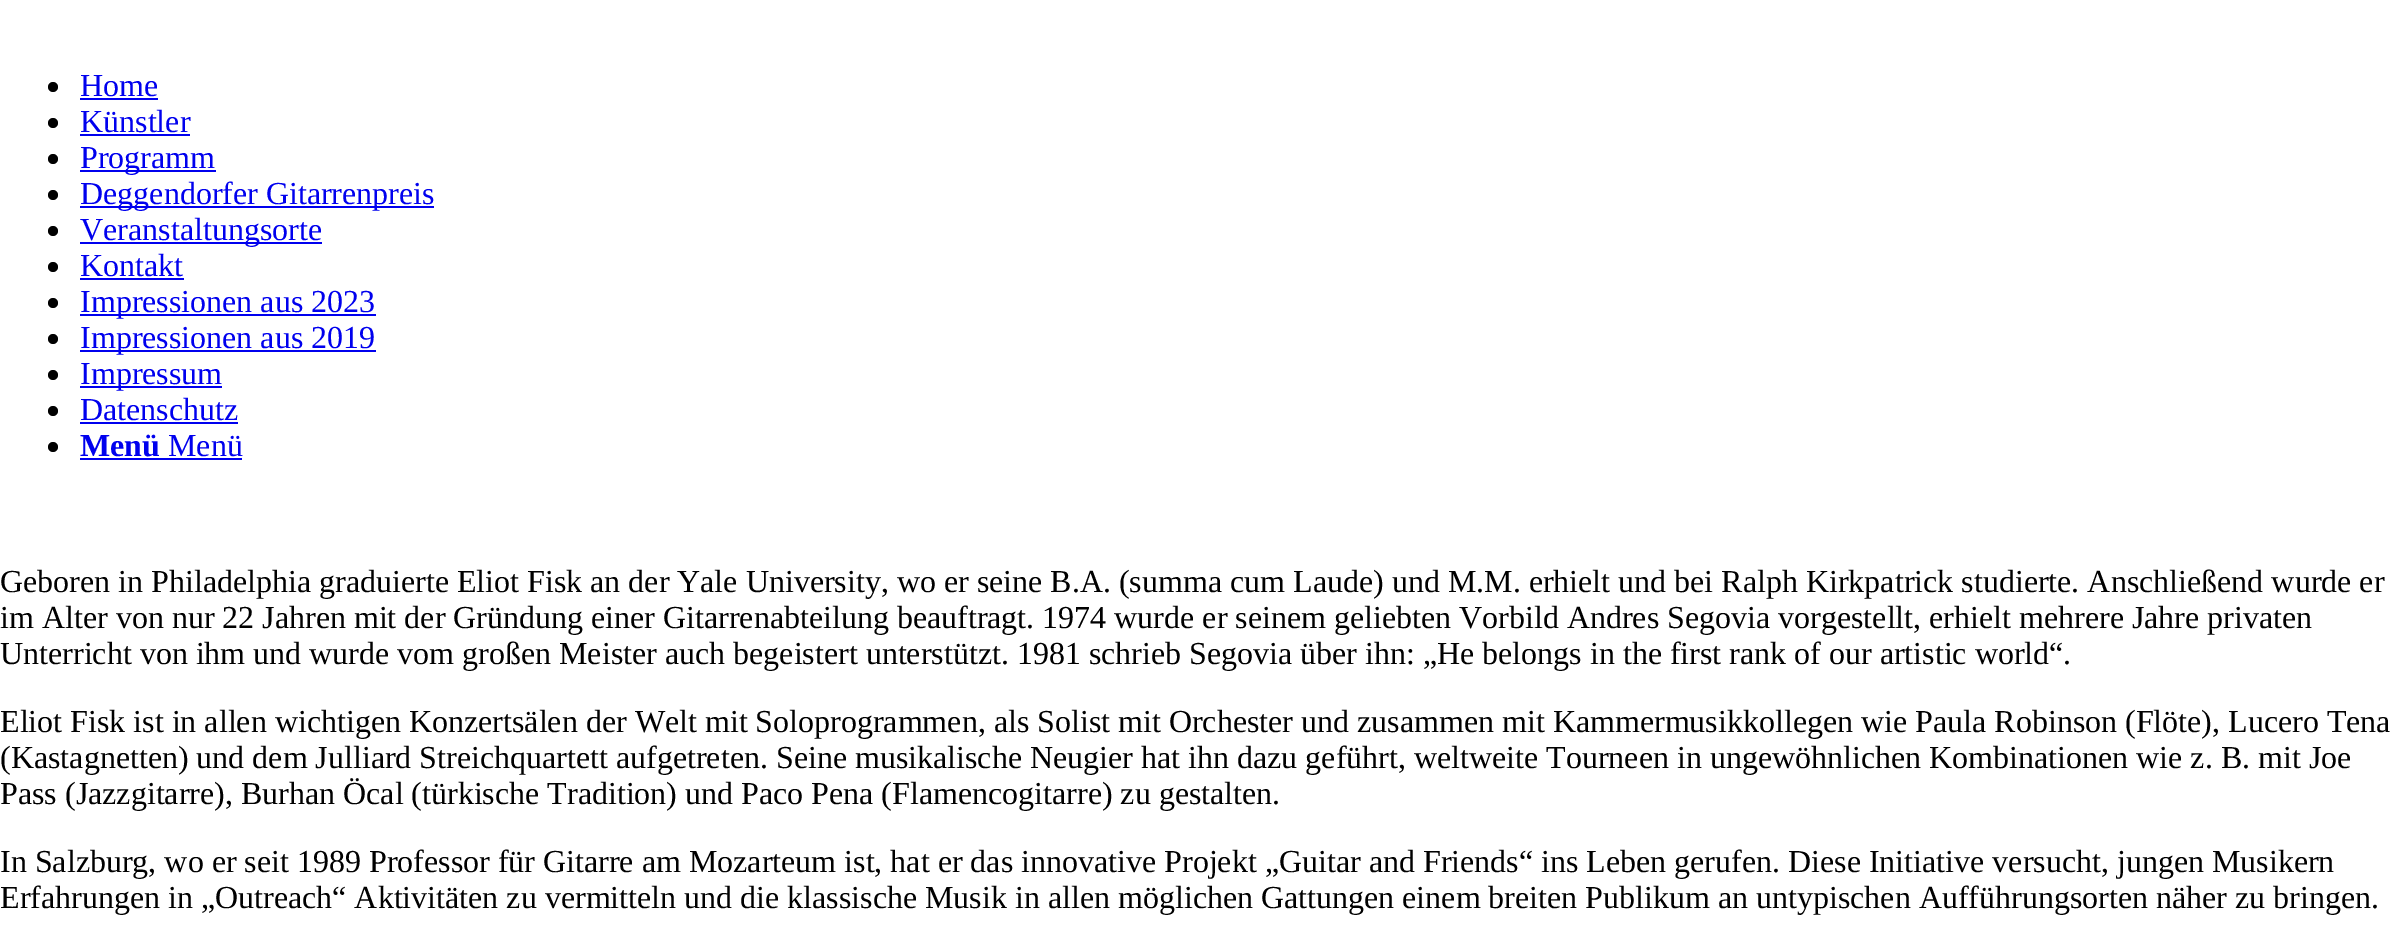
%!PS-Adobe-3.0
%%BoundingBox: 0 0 2402 943
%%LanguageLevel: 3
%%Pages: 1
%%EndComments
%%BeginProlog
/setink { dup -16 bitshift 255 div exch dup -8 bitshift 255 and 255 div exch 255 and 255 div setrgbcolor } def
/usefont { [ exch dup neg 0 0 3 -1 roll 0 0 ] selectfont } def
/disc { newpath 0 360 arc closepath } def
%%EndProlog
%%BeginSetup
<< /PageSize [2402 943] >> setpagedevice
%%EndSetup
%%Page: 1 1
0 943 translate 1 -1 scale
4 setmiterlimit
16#FFFFFF setink
0 0 2402 943 rectfill
16#000000 setink
53 87 5 disc fill
/LiberationSerif-Regular 32 usefont
16#0000EE setink
80 96 moveto (Home) show
80 98 78 2 rectfill
16#000000 setink
53 123 5 disc fill
16#0000EE setink
80 132 moveto (Künstler) show
80 134 110 2 rectfill
16#000000 setink
53 159 5 disc fill
16#0000EE setink
80 170 136 2 rectfill
80 168 moveto (Programm) show
16#000000 setink
53 195 5 disc fill
16#0000EE setink
80 206 354 2 rectfill
80 204 moveto (Deggendorfer Gitarrenpreis) show
16#000000 setink
53 231 5 disc fill
16#0000EE setink
80 242 242 2 rectfill
80 240 moveto (Veranstaltungsorte) show
16#000000 setink
53 267 5 disc fill
16#0000EE setink
80 276 moveto (Kontakt) show
80 278 104 2 rectfill
16#000000 setink
53 303 5 disc fill
16#0000EE setink
80 314 296 2 rectfill
80 312 moveto (Impressionen aus 2023) show
16#000000 setink
53 339 5 disc fill
16#0000EE setink
80 350 296 2 rectfill
80 348 moveto (Impressionen aus 2019) show
16#000000 setink
53 375 5 disc fill
16#0000EE setink
80 386 142 2 rectfill
80 384 moveto (Impressum) show
16#000000 setink
53 411 5 disc fill
16#0000EE setink
80 420 moveto (Datenschutz) show
80 422 158 2 rectfill
16#000000 setink
53 447 5 disc fill
/LiberationSerif-Bold 32 usefont
16#0000EE setink
80 456 moveto (Menü) show
/LiberationSerif-Regular 32 usefont
168 456 moveto (Menü) show
80 458 162 2 rectfill
16#000000 setink
[
    [(Geboren in Philadelphia graduierte Eliot Fisk an der Yale University, wo er seine B.A. \(summa cum Laude\) und M.M. erhielt und bei Ralph Kirkpatrick studierte. Anschließend wurde er) 0 592]
    [(im Alter von nur 22 Jahren mit der Gründung einer Gitarrenabteilung beauftragt. 1974 wurde er seinem geliebten Vorbild Andres Segovia vorgestellt, erhielt mehrere Jahre privaten) 0 628]
    [(Unterricht von ihm und wurde vom großen Meister auch begeistert unterstützt. 1981 schrieb Segovia über ihn: „He belongs in the first rank of our artistic world“.) 0 664]
    [(Eliot Fisk ist in allen wichtigen Konzertsälen der Welt mit Soloprogrammen, als Solist mit Orchester und zusammen mit Kammermusikkollegen wie Paula Robinson \(Flöte\), Lucero Tena) 0 732]
    [(\(Kastagnetten\) und dem Julliard Streichquartett aufgetreten. Seine musikalische Neugier hat ihn dazu geführt, weltweite Tourneen in ungewöhnlichen Kombinationen wie z. B. mit Joe) 0 768]
    [(Pass \(Jazzgitarre\), Burhan Öcal \(türkische Tradition\) und Paco Pena \(Flamencogitarre\) zu gestalten.) 0 804]
    [(In Salzburg, wo er seit 1989 Professor für Gitarre am Mozarteum ist, hat er das innovative Projekt „Guitar and Friends“ ins Leben gerufen. Diese Initiative versucht, jungen Musikern) 0 872]
    [(Erfahrungen in „Outreach“ Aktivitäten zu vermitteln und die klassische Musik in allen möglichen Gattungen einem breiten Publikum an untypischen Aufführungsorten näher zu bringen.) 0 908]
] { aload pop moveto show } forall
showpage
%%EOF
